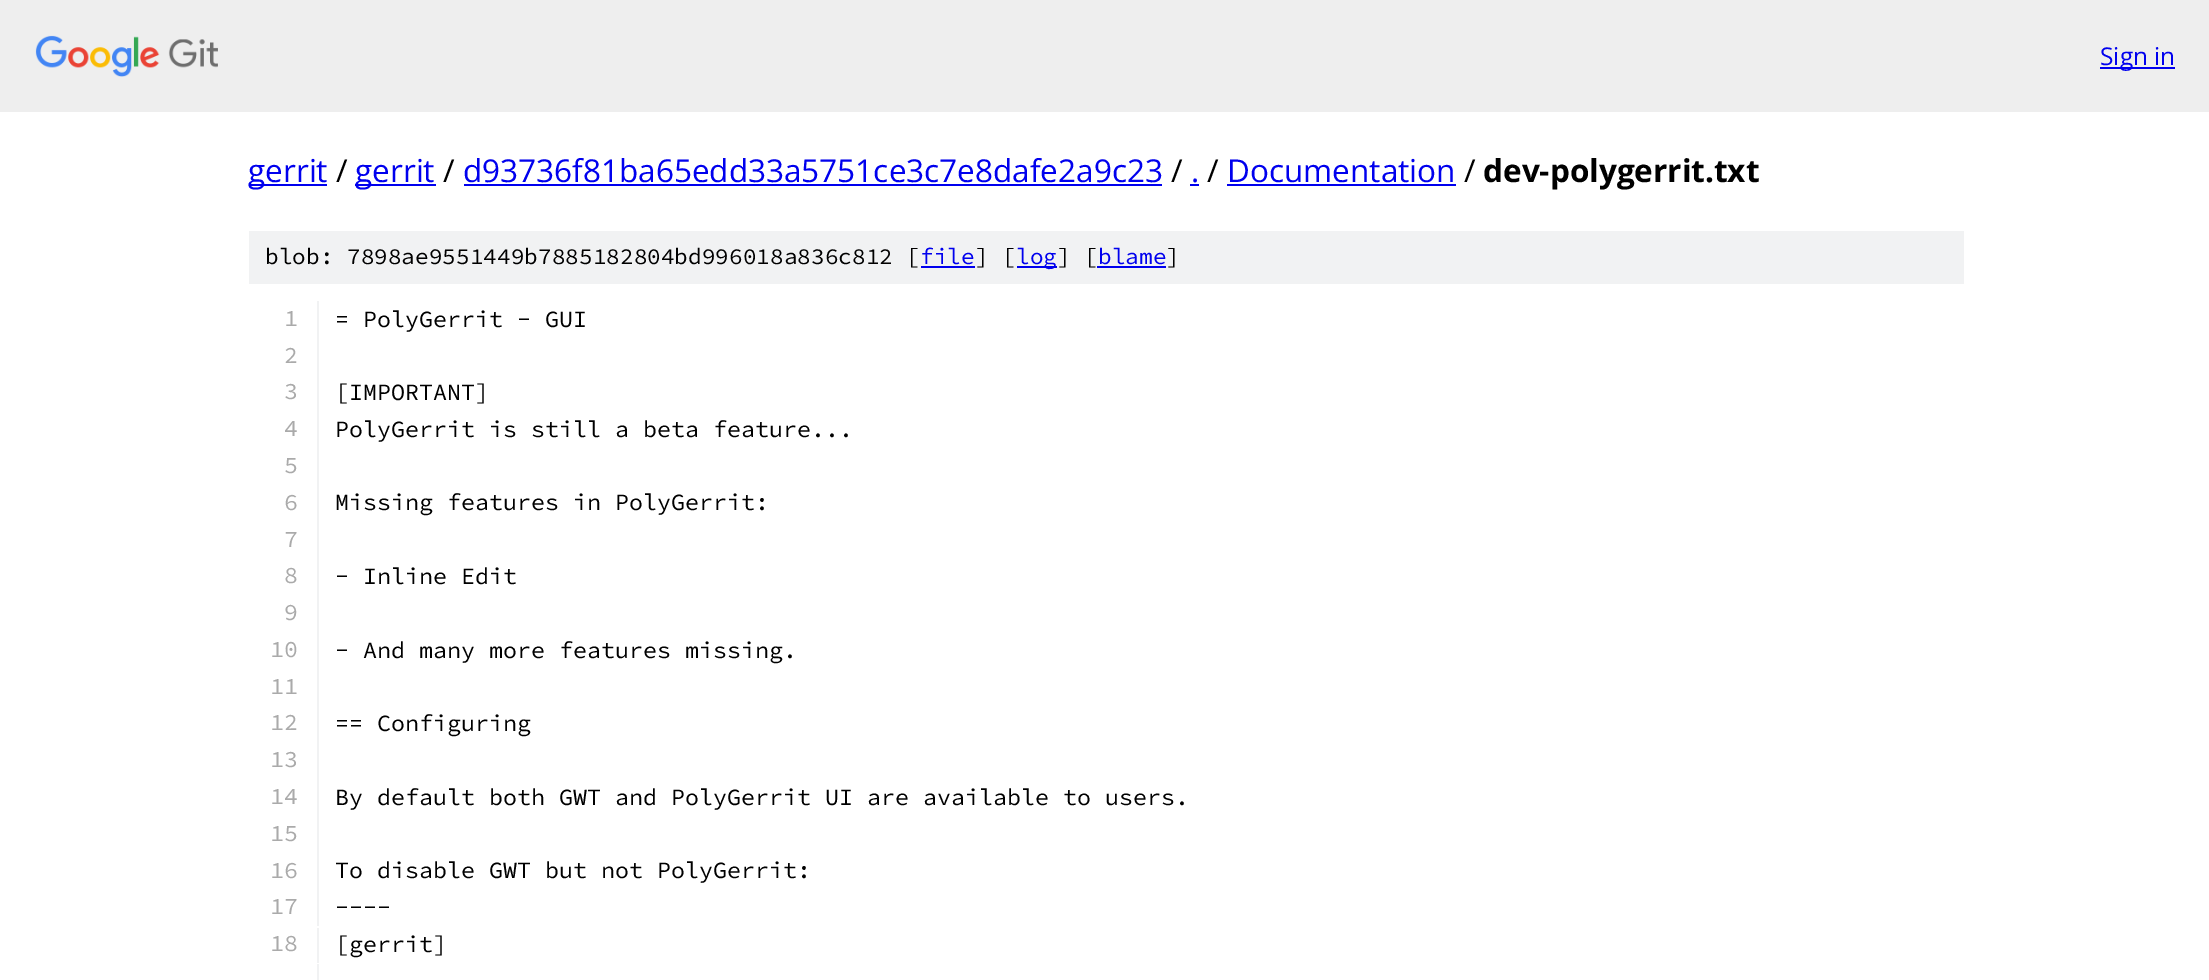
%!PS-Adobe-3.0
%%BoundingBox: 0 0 2209 980
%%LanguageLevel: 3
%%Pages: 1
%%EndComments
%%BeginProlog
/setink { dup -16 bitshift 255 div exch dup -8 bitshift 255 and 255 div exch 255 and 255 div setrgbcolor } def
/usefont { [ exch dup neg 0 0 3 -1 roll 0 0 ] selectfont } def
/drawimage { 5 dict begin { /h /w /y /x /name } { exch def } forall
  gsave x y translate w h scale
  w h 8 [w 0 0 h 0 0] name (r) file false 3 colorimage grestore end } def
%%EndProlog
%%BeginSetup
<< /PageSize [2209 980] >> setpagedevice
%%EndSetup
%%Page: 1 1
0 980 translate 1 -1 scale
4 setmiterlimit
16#FFFFFF setink
0 0 2209 980 rectfill
16#EEEEEE setink
0 0 2209 112 rectfill
(img1.raw) 35 35 183 42 drawimage
16#0000EE setink
2100 67 75 2 rectfill
/OpenSans-Regular 24.5 usefont
2100 65 moveto (Sign in) show
249 184 78 2 rectfill
/OpenSans-Regular 31.5 usefont
248 182 moveto (gerrit) show
16#000000 setink
336 182 moveto (/) show
16#0000EE setink
355 184 81 2 rectfill
355 182 moveto (gerrit) show
16#000000 setink
443 182 moveto (/) show
16#0000EE setink
463 182 moveto (d93736f81ba65edd33a5751ce3c7e8dafe2a9c23) show
464 184 698 2 rectfill
16#000000 setink
1171 182 moveto (/) show
16#0000EE setink
1191 182 moveto (.) show
1190 184 9 2 rectfill
16#000000 setink
1207 182 moveto (/) show
16#0000EE setink
1227 182 moveto (Documentation) show
1227 184 229 2 rectfill
16#000000 setink
1464 182 moveto (/) show
/OpenSans-Bold 31.5 usefont
1483 182 moveto (dev-polygerrit.txt) show
16#F1F2F3 setink
249 231 1715 53 rectfill
/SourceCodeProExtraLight-ExtraLight 22.75 usefont
16#000000 setink
265 264 moveto (blob: 7898ae9551449b7885182804bd996018a836c812 [) show
16#0000EE setink
920 264 moveto (file) show
921 266 54 2 rectfill
16#000000 setink
975 264 moveto (] [) show
16#0000EE setink
1017 266 40 2 rectfill
1016 264 moveto (log) show
16#000000 setink
1057 264 moveto (] [) show
16#0000EE setink
1098 264 moveto (blame) show
1097 266 69 2 rectfill
16#000000 setink
1166 264 moveto (]) show
16#F1F2F3 setink
317 301 2 625 rectfill
/SourceCodeProExtraLight-ExtraLight 23.35 usefont
16#AAAAAA setink
284 326 moveto (1) show
16#000000 setink
335 327 moveto (= PolyGerrit - GUI) show
16#AAAAAA setink
284 363 moveto (2) show
284 399 moveto (3) show
16#000000 setink
335 400 moveto ([IMPORTANT]) show
16#AAAAAA setink
284 436 moveto (4) show
16#000000 setink
335 437 moveto (PolyGerrit is still a beta feature...) show
16#AAAAAA setink
284 473 moveto (5) show
284 510 moveto (6) show
16#000000 setink
335 510 moveto (Missing features in PolyGerrit:) show
16#AAAAAA setink
284 547 moveto (7) show
284 583 moveto (8) show
16#000000 setink
335 584 moveto (- Inline Edit) show
16#AAAAAA setink
284 620 moveto (9) show
270 657 moveto (10) show
16#000000 setink
335 658 moveto (- And many more features missing.) show
16#AAAAAA setink
270 694 moveto (11) show
270 730 moveto (12) show
16#000000 setink
335 731 moveto (== Configuring) show
16#AAAAAA setink
270 767 moveto (13) show
270 804 moveto (14) show
16#000000 setink
335 805 moveto (By default both GWT and PolyGerrit UI are available to users.) show
16#AAAAAA setink
270 841 moveto (15) show
270 878 moveto (16) show
16#000000 setink
335 878 moveto (To disable GWT but not PolyGerrit:) show
16#AAAAAA setink
270 914 moveto (17) show
16#000000 setink
335 915 moveto (----) show
16#F1F2F3 setink
317 928 2 35 rectfill
16#AAAAAA setink
270 951 moveto (18) show
16#000000 setink
335 952 moveto ([gerrit]) show
16#F1F2F3 setink
317 964 2 16 rectfill
showpage
%%EOF
